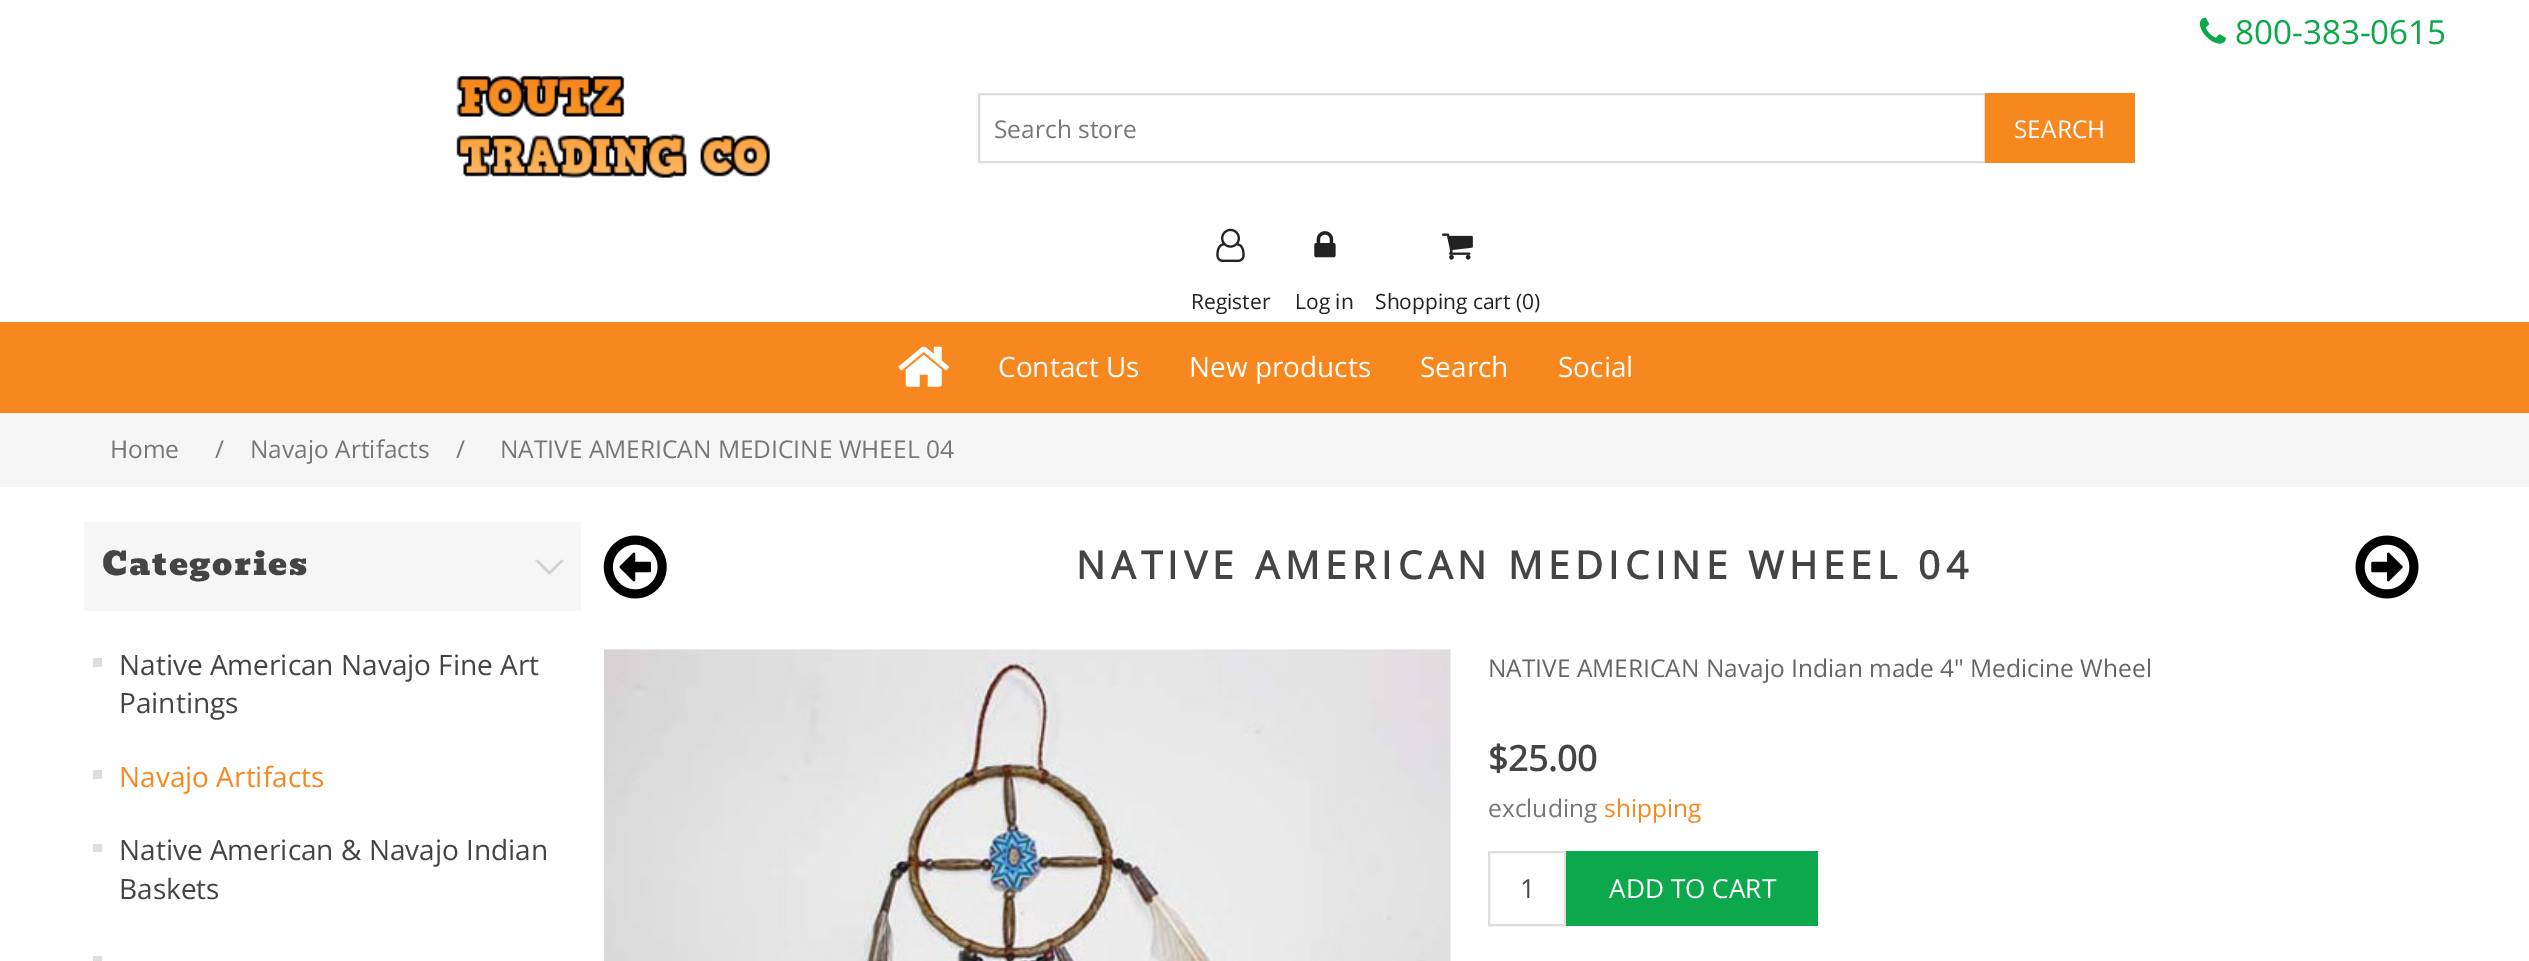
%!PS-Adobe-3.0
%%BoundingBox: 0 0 2529 961
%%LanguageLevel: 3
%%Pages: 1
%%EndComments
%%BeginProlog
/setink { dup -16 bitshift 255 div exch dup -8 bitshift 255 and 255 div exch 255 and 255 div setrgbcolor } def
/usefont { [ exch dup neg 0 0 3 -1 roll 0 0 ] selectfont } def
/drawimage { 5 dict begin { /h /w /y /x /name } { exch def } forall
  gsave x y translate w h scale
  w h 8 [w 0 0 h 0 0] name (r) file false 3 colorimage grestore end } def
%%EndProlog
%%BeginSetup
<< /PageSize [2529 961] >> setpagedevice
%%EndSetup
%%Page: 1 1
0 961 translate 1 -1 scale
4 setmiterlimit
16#FFFFFF setink
0 0 2529 961 rectfill
(img1.raw) 2199 17 27 27 drawimage
/OpenSans-Regular 33.25 usefont
16#0EA84C setink
2235 44 moveto (800-383-0615) show
(img2.raw) 456 75 314 103 drawimage
16#DDDDDD setink
2 setlinewidth
979 94 1006 68 rectstroke
/OpenSans-Regular 24.5 usefont
16#777777 setink
994 138 moveto (Search store) show
16#F6881F setink
1985 93 150 70 rectfill
16#FFFFFF setink
2014 138 moveto (SEARCH) show
(img3.raw) 1216 228 29 34 drawimage
/OpenSans-Regular 21 usefont
16#222222 setink
1191 309 moveto (Register) show
(img4.raw) 1314 231 22 27 drawimage
1295 309 moveto (Log in) show
(img5.raw) 1442 233 31 27 drawimage
1375 309 moveto (Shopping cart \(0\)) show
16#F6881F setink
0 322 2529 91 rectfill
(img6.raw) 898 346 51 41 drawimage
/OpenSans-Regular 28 usefont
16#FFFFFF setink
[
    [(Contact Us) 998 377]
    [(New products) 1189 377]
    [(Search) 1420 377]
    [(Social) 1558 377]
] { aload pop moveto show } forall
16#F6F6F6 setink
0 413 2529 74 rectfill
/OpenSans-Regular 24.5 usefont
16#777777 setink
[
    [(Home) 110 458]
    [(/) 215 458]
    [(Navajo Artifacts) 250 458]
    [(/) 456 458]
    [(NATIVE AMERICAN MEDICINE WHEEL 04) 500 458]
] { aload pop moveto show } forall
16#F6F6F6 setink
84 522 497 89 rectfill
(img7.raw) 535 559 29 16 drawimage
/Bevan-Regular 31.5 usefont
16#444444 setink
102 575 moveto 1.75 0 (Categories) ashow
16#DDDDDD setink
93 658 9 9 rectfill
/OpenSans-Regular 28 usefont
16#444444 setink
119 675 moveto (Native American Navajo Fine Art) show
119 713 moveto (Paintings) show
16#DDDDDD setink
93 770 9 9 rectfill
16#F6881F setink
119 787 moveto (Navajo Artifacts) show
16#DDDDDD setink
93 844 9 8 rectfill
16#444444 setink
119 860 moveto (Native American & Navajo Indian) show
119 899 moveto (Baskets) show
16#DDDDDD setink
93 956 9 5 rectfill
(img8.raw) 603 535 64 64 drawimage
(img9.raw) 2355 535 64 64 drawimage
/OpenSans-Bold 38.5 usefont
16#444444 setink
1076 579 moveto 5.6 0 (NATIVE AMERICAN MEDICINE WHEEL 04) ashow
(img10.raw) 604 649 847 312 drawimage
/OpenSans-Regular 24.5 usefont
16#666666 setink
1488 677 moveto (NATIVE AMERICAN Navajo Indian made 4" Medicine Wheel) show
/OpenSans-Bold 35 usefont
16#444444 setink
1488 771 moveto ($25.00) show
/OpenSans-Regular 24.5 usefont
16#777777 setink
1488 817 moveto (excluding) show
16#F6881F setink
1604 817 moveto (shipping) show
16#DDDDDD setink
1489 852 76 73 rectstroke
/OpenSans-Regular 26.25 usefont
16#444444 setink
1520 898 moveto (1) show
16#0EA84C setink
1566 851 252 75 rectfill
16#FFFFFF setink
1609 898 moveto (ADD TO CART) show
showpage
%%EOF
